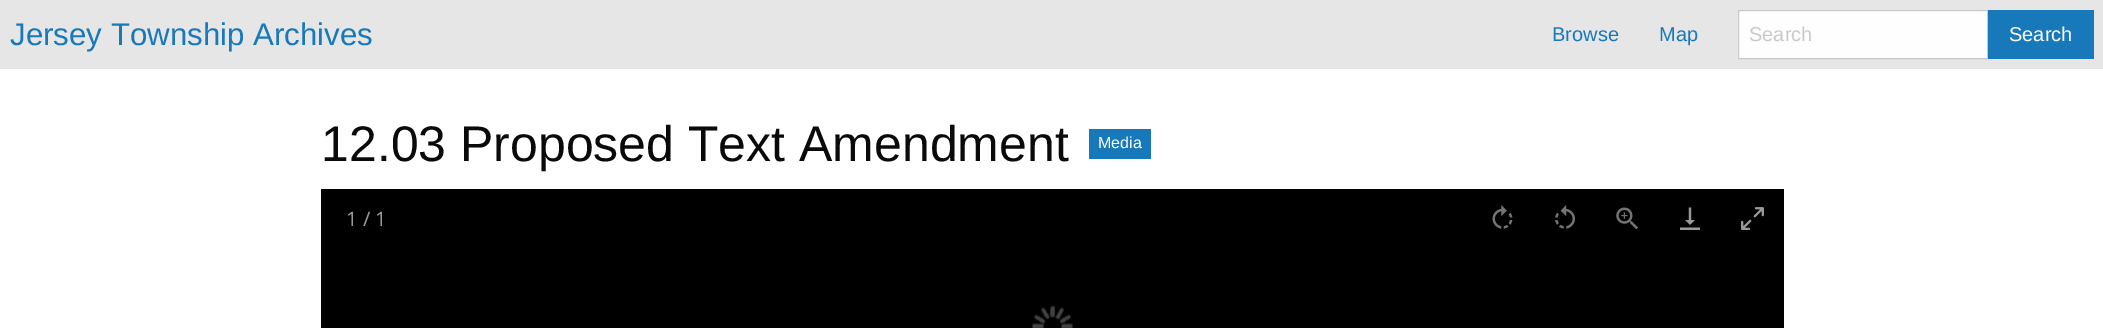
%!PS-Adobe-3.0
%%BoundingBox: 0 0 2103 328
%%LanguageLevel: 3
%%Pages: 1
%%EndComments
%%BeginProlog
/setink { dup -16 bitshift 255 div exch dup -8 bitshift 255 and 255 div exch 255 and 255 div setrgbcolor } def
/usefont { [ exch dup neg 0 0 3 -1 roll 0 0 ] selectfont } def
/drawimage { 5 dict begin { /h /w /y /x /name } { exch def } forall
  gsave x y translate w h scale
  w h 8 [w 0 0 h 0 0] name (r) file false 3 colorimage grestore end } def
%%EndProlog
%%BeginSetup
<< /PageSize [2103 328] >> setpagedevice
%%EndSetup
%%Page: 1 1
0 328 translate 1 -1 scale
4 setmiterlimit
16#FFFFFF setink
0 0 2103 328 rectfill
16#E6E6E6 setink
0 0 2103 69 rectfill
/LiberationSans-Regular 31.25 usefont
16#1779BA setink
10 45 moveto (Jersey Township Archives) show
/LiberationSans-Regular 20 usefont
1552 41 moveto (Browse) show
1659 41 moveto (Map) show
16#FEFEFE setink
1738.5 10.5 moveto 1987.5 10.5 lineto 1987.5 58.5 lineto 1738.5 58.5 lineto closepath gsave fill grestore
16#CACACA setink
stroke
1749 41 moveto (Search) show
16#1779BA setink
1988 10 106 49 rectfill
16#FEFEFE setink
2009 41 moveto (Search) show
/LiberationSans-Regular 50 usefont
16#0A0A0A setink
321 161 moveto (12.03 Proposed Text Amendment) show
16#1779BA setink
1089 129 62 30 rectfill
/LiberationSans-Regular 16 usefont
16#FEFEFE setink
1098 148 moveto (Media) show
16#000000 setink
321 189 1463 139 rectfill
/NotoSans-Regular 20 usefont
16#999999 setink
346 226 moveto (1 / 1) show
(img1.raw) 1492 205 21 24 drawimage
(img2.raw) 1555 205 20 24 drawimage
(img3.raw) 1616 207 22 23 drawimage
(img4.raw) 1680 207 20 23 drawimage
(img5.raw) 1741 207 23 23 drawimage
(img6.raw) 1032 305 41 23 drawimage
showpage
%%EOF
